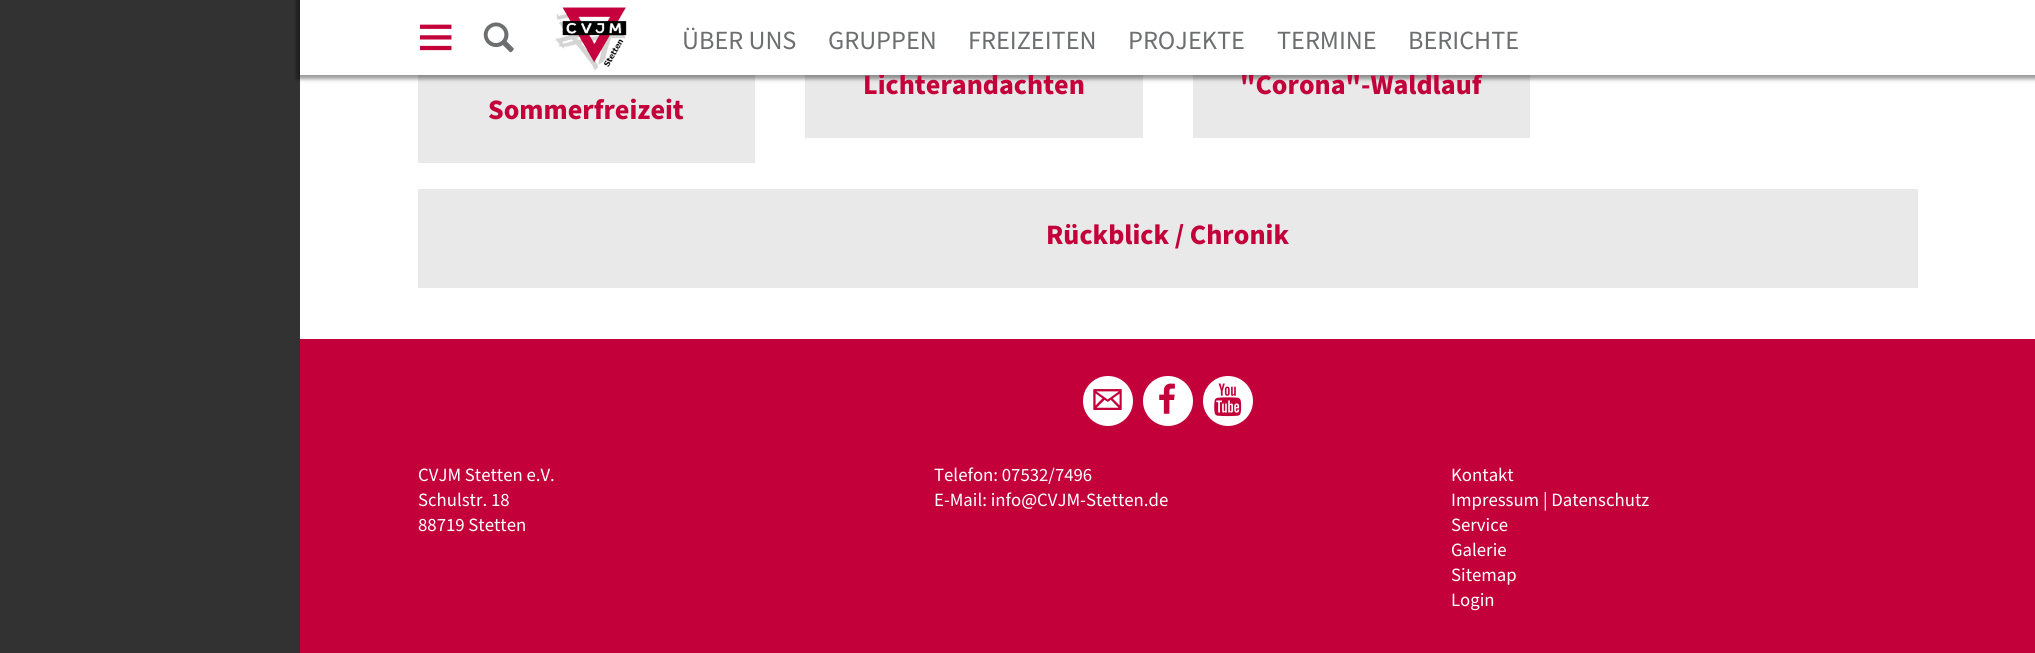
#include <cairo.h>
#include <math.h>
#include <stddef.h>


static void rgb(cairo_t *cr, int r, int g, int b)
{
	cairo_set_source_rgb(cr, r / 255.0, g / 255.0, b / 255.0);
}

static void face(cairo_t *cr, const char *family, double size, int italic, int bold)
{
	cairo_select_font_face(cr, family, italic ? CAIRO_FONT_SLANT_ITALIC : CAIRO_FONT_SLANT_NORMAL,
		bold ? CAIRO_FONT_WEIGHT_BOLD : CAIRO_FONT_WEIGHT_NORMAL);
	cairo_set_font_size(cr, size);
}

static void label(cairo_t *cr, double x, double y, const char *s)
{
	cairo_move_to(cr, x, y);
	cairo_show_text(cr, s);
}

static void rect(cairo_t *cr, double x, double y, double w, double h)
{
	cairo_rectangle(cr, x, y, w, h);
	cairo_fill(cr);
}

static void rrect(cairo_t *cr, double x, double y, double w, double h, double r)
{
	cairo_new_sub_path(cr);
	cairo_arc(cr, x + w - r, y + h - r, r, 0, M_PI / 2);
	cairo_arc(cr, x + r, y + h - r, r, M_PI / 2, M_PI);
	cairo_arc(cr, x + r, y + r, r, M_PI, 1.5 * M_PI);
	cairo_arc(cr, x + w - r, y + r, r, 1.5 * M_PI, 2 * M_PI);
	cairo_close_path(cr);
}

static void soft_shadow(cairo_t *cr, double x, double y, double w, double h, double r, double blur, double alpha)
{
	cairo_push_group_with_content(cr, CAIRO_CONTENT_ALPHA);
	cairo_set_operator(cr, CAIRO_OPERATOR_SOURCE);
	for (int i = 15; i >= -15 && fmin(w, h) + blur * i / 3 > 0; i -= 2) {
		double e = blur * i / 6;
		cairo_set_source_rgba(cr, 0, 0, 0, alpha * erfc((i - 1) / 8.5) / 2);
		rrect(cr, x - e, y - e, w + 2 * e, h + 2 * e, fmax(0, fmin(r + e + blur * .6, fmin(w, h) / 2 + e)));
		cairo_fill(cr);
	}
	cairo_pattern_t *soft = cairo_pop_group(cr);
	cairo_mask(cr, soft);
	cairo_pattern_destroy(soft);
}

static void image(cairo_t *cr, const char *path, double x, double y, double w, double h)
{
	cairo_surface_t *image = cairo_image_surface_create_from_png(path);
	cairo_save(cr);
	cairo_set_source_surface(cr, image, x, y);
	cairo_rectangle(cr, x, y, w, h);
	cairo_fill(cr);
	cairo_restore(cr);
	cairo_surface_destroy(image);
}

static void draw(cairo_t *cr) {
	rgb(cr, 50, 50, 50);
	cairo_paint(cr);
	rgb(cr, 195, 0, 57);
	rect(cr, 300, 339, 1735, 314);
	rgb(cr, 255, 255, 255);
	rect(cr, 300, 75, 1735, 264);
	rgb(cr, 233, 233, 234);
	rect(cr, 805, 75, 338, 63);
	rect(cr, 1193, 75, 337, 63);
	rect(cr, 418, 75, 337, 88);
	rgb(cr, 0, 0, 0);
	soft_shadow(cr, 296, -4, 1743, 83, 0, 2, 0.4);
	face(cr, "Source Sans Pro", 28.1, 0, 1);
	rgb(cr, 195, 0, 57);
	label(cr, 863, 94, "Lichterandachten");
	label(cr, 1240, 94, "\"Corona\"-Waldlauf");
	rgb(cr, 255, 255, 255);
	rect(cr, 300, 0, 1735, 75);
	image(cr, "image0.png", 419, 24, 33, 27);
	image(cr, "image1.png", 483, 22, 31, 31);
	image(cr, "image2.png", 555, 7, 72, 63);
	face(cr, "Source Sans Pro", 26.25, 0, 0);
	rgb(cr, 109, 110, 112);
	label(cr, 682, 49, "ÜBER UNS");
	label(cr, 828, 49, "GRUPPEN");
	label(cr, 968, 49, "FREIZEITEN");
	label(cr, 1128, 49, "PROJEKTE");
	label(cr, 1277, 49, "TERMINE");
	label(cr, 1408, 49, "BERICHTE");
	face(cr, "Source Sans Pro", 28.1, 0, 1);
	rgb(cr, 195, 0, 57);
	label(cr, 488, 119, "Sommerfreizeit");
	rgb(cr, 233, 233, 234);
	rect(cr, 418, 189, 1500, 99);
	rgb(cr, 195, 0, 57);
	label(cr, 1046, 244, "Rückblick / Chronik");
	rgb(cr, 255, 255, 255);
	cairo_new_path(cr);
	cairo_arc(cr, 1108, 401, 25, 0, 2 * M_PI);
	cairo_fill(cr);
	image(cr, "image3.png", 1093, 389, 29, 21);
	cairo_arc(cr, 1168, 401, 25, 0, 2 * M_PI);
	cairo_fill(cr);
	image(cr, "image4.png", 1159, 383, 16, 31);
	cairo_arc(cr, 1228, 401, 25, 0, 2 * M_PI);
	cairo_fill(cr);
	image(cr, "image5.png", 1214, 383, 28, 34);
	face(cr, "Source Sans Pro", 18.75, 0, 0);
	label(cr, 418, 481, "CVJM Stetten e.V.");
	label(cr, 418, 506, "Schulstr. 18");
	label(cr, 418, 531, "88719 Stetten");
	label(cr, 934, 481, "Telefon: 07532/7496");
	label(cr, 934, 506, "E-Mail: info@CVJM-Stetten.de");
	label(cr, 1451, 481, "Kontakt");
	label(cr, 1451, 506, "Impressum | Datenschutz");
	label(cr, 1451, 531, "Service");
	label(cr, 1451, 556, "Galerie");
	label(cr, 1451, 581, "Sitemap");
	label(cr, 1451, 606, "Login");
}

int main(void) {
	cairo_surface_t *surface = cairo_image_surface_create(CAIRO_FORMAT_RGB24, 2035, 653);
	cairo_t *cr = cairo_create(surface);
	cairo_font_options_t *options = cairo_font_options_create();
	cairo_font_options_set_hint_metrics(options, CAIRO_HINT_METRICS_OFF);
	cairo_font_options_set_hint_style(options, CAIRO_HINT_STYLE_NONE);
	cairo_set_font_options(cr, options);
	cairo_set_miter_limit(cr, 4);
	draw(cr);
	cairo_surface_write_to_png(surface, "render.png");
	cairo_font_options_destroy(options);
	cairo_destroy(cr);
	cairo_surface_destroy(surface);
	return 0;
}
